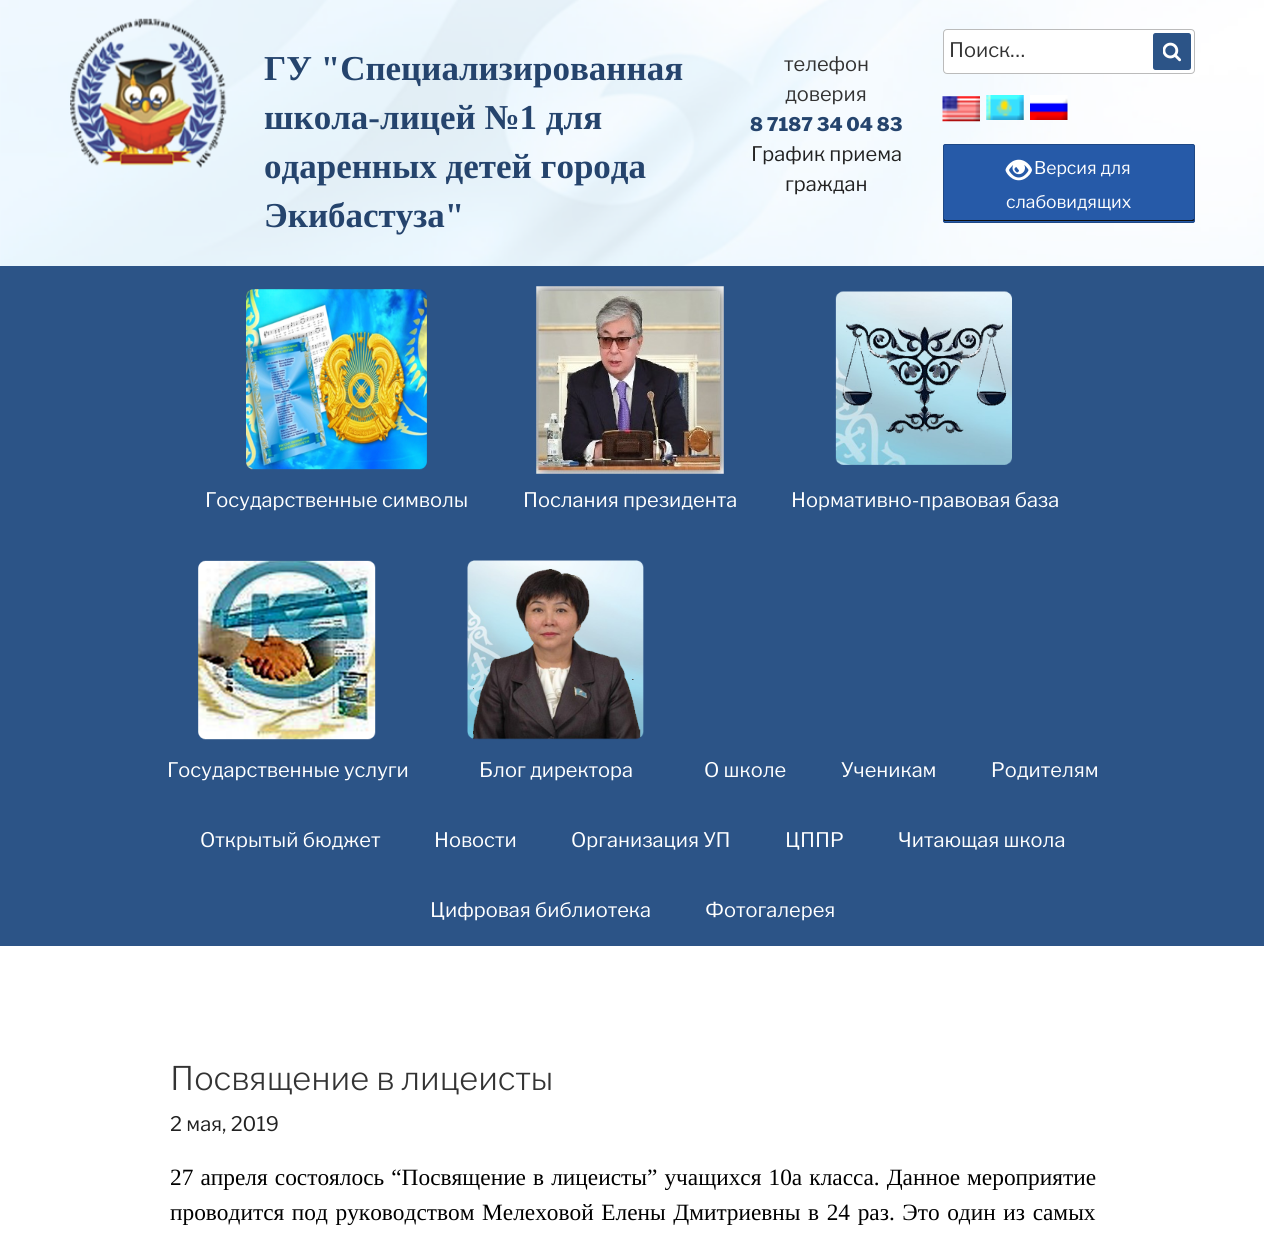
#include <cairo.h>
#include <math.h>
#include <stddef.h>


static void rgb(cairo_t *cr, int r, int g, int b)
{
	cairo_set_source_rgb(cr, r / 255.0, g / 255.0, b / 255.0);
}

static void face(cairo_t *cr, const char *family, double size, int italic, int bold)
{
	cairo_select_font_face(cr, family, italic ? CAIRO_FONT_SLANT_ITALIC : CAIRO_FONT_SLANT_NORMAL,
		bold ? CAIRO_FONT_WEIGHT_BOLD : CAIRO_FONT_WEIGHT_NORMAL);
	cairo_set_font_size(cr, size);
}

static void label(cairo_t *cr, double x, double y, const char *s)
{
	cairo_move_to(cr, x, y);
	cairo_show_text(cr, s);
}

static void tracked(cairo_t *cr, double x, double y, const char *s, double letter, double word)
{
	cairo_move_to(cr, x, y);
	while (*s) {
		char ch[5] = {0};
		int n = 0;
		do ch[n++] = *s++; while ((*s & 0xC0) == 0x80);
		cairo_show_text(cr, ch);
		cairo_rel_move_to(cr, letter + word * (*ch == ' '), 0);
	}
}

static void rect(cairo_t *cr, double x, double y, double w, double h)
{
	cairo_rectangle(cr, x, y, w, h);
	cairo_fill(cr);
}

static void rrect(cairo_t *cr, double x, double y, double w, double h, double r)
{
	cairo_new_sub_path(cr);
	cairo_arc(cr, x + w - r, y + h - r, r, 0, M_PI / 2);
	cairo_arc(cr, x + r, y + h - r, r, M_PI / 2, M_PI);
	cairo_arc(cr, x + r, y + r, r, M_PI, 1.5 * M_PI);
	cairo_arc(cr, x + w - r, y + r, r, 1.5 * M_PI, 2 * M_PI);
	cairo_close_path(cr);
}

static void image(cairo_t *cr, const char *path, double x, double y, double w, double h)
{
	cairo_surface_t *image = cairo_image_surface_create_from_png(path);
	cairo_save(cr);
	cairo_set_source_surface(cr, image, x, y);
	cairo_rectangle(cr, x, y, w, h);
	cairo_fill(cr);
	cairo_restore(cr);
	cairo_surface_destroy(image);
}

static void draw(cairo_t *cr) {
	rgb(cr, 255, 255, 255);
	cairo_paint(cr);
	image(cr, "image0.png", 0, 0, 1264, 266);
	image(cr, "image1.png", 70, 18, 157, 150);
	face(cr, "Liberation Serif", 35, 0, 1);
	rgb(cr, 37, 68, 109);
	label(cr, 264, 80, "ГУ \"Специализированная");
	label(cr, 264, 129, "школа-лицей №1 для");
	label(cr, 264, 178, "одаренных детей города");
	label(cr, 264, 227, "Экибастуза\"");
	face(cr, "Libre Franklin", 20, 0, 0);
	rgb(cr, 51, 51, 51);
	label(cr, 784, 71, "телефон");
	label(cr, 785, 101, "доверия");
	face(cr, "Libre Franklin ExtraBold", 18.75, 0, 0);
	rgb(cr, 37, 68, 109);
	label(cr, 750, 131, "8 7187 34 04 83");
	face(cr, "Libre Franklin", 20, 0, 0);
	rgb(cr, 34, 34, 34);
	label(cr, 751, 161, "График приема");
	label(cr, 785, 191, "граждан");
	rgb(cr, 255, 255, 255);
	rrect(cr, 943.5, 29.5, 251, 44, 3.5);
	cairo_fill_preserve(cr);
	rgb(cr, 187, 187, 187);
	cairo_set_line_width(cr, 1);
	cairo_stroke(cr);
	rgb(cr, 51, 51, 51);
	label(cr, 949, 57, "Поиск…");
	rgb(cr, 44, 84, 135);
	rrect(cr, 1153, 33, 38, 37, 2.5);
	cairo_fill(cr);
	image(cr, "image2.png", 1163, 42, 18, 20);
	image(cr, "image3.png", 942, 96, 38, 26);
	image(cr, "image4.png", 986, 95, 38, 25);
	image(cr, "image5.png", 1030, 95, 38, 25);
	rgb(cr, 38, 90, 168);
	rrect(cr, 943, 144, 252, 79, 2.5);
	cairo_fill(cr);
	rgb(cr, 15, 15, 15);
	cairo_new_path(cr);
	cairo_move_to(cr, 944, 219);
	cairo_line_to(cr, 944, 221);
	cairo_line_to(cr, 1193, 221);
	cairo_curve_to(cr, 1194, 221, 1194, 220, 1194, 219);
	cairo_line_to(cr, 1192, 220);
	cairo_line_to(cr, 945, 220);
	cairo_close_path(cr);
	cairo_fill(cr);
	rrect(cr, 943.5, 144.5, 251, 78, 2);
	rgb(cr, 30, 72, 134);
	cairo_stroke(cr);
	image(cr, "image6.png", 1005, 159, 27, 22);
	face(cr, "Libre Franklin", 17.5, 0, 0);
	rgb(cr, 255, 255, 255);
	label(cr, 1034, 174, "Версия для");
	label(cr, 1006, 208, "слабовидящих");
	rgb(cr, 44, 84, 135);
	rect(cr, 0, 266, 1264, 680);
	image(cr, "image7.png", 246, 289, 181, 181);
	face(cr, "Libre Franklin", 20, 0, 0);
	rgb(cr, 255, 255, 255);
	label(cr, 205, 507, "Государственные символы");
	image(cr, "image8.png", 536, 286, 188, 188);
	label(cr, 523, 507, "Послания президента");
	image(cr, "image9.png", 835, 291, 177, 174);
	label(cr, 791, 507, "Нормативно-правовая база");
	image(cr, "image10.png", 198, 560, 178, 180);
	label(cr, 167, 777, "Государственные услуги");
	image(cr, "image11.png", 467, 560, 177, 180);
	label(cr, 479, 777, "Блог директора");
	label(cr, 704, 777, "О школе");
	label(cr, 841, 777, "Ученикам");
	label(cr, 991, 777, "Родителям");
	label(cr, 200, 847, "Открытый бюджет");
	label(cr, 434, 847, "Новости");
	label(cr, 571, 847, "Организация УП");
	label(cr, 785, 847, "ЦППР");
	label(cr, 898, 847, "Читающая школа");
	label(cr, 430, 917, "Цифровая библиотека");
	label(cr, 705, 917, "Фотогалерея");
	face(cr, "Libre Franklin Light", 32.5, 0, 0);
	rgb(cr, 51, 51, 51);
	label(cr, 170, 1090, "Посвящение в лицеисты");
	face(cr, "Libre Franklin", 20, 0, 0);
	rgb(cr, 34, 34, 34);
	label(cr, 170, 1131, "2 мая, 2019");
	face(cr, "Liberation Serif", 23.35, 0, 0);
	rgb(cr, 0, 0, 0);
	tracked(cr, 170, 1185, "27 апреля состоялось “Посвящение в лицеисты” учащихся 10а класса. Данное мероприятие", 0, 1.25);
	tracked(cr, 170, 1220, "проводится под руководством Мелеховой Елены Дмитриевны в 24 раз. Это один из самых", 0, 1.75);
}

int main(void) {
	cairo_surface_t *surface = cairo_image_surface_create(CAIRO_FORMAT_RGB24, 1264, 1241);
	cairo_t *cr = cairo_create(surface);
	cairo_font_options_t *options = cairo_font_options_create();
	cairo_font_options_set_hint_metrics(options, CAIRO_HINT_METRICS_OFF);
	cairo_font_options_set_hint_style(options, CAIRO_HINT_STYLE_NONE);
	cairo_set_font_options(cr, options);
	cairo_set_miter_limit(cr, 4);
	draw(cr);
	cairo_surface_write_to_png(surface, "render.png");
	cairo_font_options_destroy(options);
	cairo_destroy(cr);
	cairo_surface_destroy(surface);
	return 0;
}
